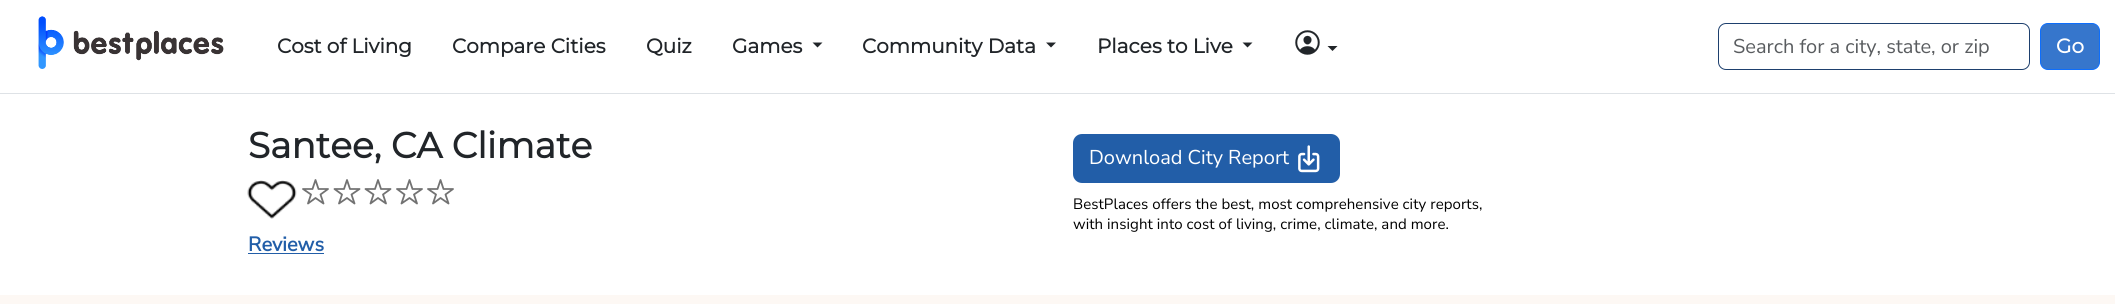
#include <cairo.h>
#include <math.h>
#include <stddef.h>


static void rgb(cairo_t *cr, int r, int g, int b)
{
	cairo_set_source_rgb(cr, r / 255.0, g / 255.0, b / 255.0);
}

static void face(cairo_t *cr, const char *family, double size, int italic, int bold)
{
	cairo_select_font_face(cr, family, italic ? CAIRO_FONT_SLANT_ITALIC : CAIRO_FONT_SLANT_NORMAL,
		bold ? CAIRO_FONT_WEIGHT_BOLD : CAIRO_FONT_WEIGHT_NORMAL);
	cairo_set_font_size(cr, size);
}

static void label(cairo_t *cr, double x, double y, const char *s)
{
	cairo_move_to(cr, x, y);
	cairo_show_text(cr, s);
}

static void tracked(cairo_t *cr, double x, double y, const char *s, double letter, double word)
{
	cairo_move_to(cr, x, y);
	while (*s) {
		char ch[5] = {0};
		int n = 0;
		do ch[n++] = *s++; while ((*s & 0xC0) == 0x80);
		cairo_show_text(cr, ch);
		cairo_rel_move_to(cr, letter + word * (*ch == ' '), 0);
	}
}

static void rect(cairo_t *cr, double x, double y, double w, double h)
{
	cairo_rectangle(cr, x, y, w, h);
	cairo_fill(cr);
}

static void rrect(cairo_t *cr, double x, double y, double w, double h, double r)
{
	cairo_new_sub_path(cr);
	cairo_arc(cr, x + w - r, y + h - r, r, 0, M_PI / 2);
	cairo_arc(cr, x + r, y + h - r, r, M_PI / 2, M_PI);
	cairo_arc(cr, x + r, y + r, r, M_PI, 1.5 * M_PI);
	cairo_arc(cr, x + w - r, y + r, r, 1.5 * M_PI, 2 * M_PI);
	cairo_close_path(cr);
}

static void image(cairo_t *cr, const char *path, double x, double y, double w, double h)
{
	cairo_surface_t *image = cairo_image_surface_create_from_png(path);
	cairo_save(cr);
	cairo_set_source_surface(cr, image, x, y);
	cairo_rectangle(cr, x, y, w, h);
	cairo_fill(cr);
	cairo_restore(cr);
	cairo_surface_destroy(image);
}

static void draw(cairo_t *cr) {
	rgb(cr, 255, 255, 255);
	cairo_paint(cr);
	rgb(cr, 222, 226, 230);
	rect(cr, 0, 93, 2115, 1);
	image(cr, "image0.png", 38, 16, 186, 53);
	face(cr, "Montserrat", 20, 0, 1);
	rgb(cr, 33, 37, 41);
	label(cr, 277, 53, "Cost of Living");
	label(cr, 452, 53, "Compare Cities");
	label(cr, 646, 53, "Quiz");
	label(cr, 732, 53, "Games");
	cairo_new_path(cr);
	cairo_move_to(cr, 812.5, 42.5);
	cairo_line_to(cr, 822.5, 42.5);
	cairo_line_to(cr, 817.5, 47.5);
	cairo_close_path(cr);
	cairo_fill(cr);
	label(cr, 862, 53, "Community Data");
	cairo_new_path(cr);
	cairo_move_to(cr, 1046, 42.5);
	cairo_line_to(cr, 1056, 42.5);
	cairo_line_to(cr, 1051, 47.5);
	cairo_close_path(cr);
	cairo_fill(cr);
	label(cr, 1097, 53, "Places to Live");
	cairo_new_path(cr);
	cairo_move_to(cr, 1242.5, 42.5);
	cairo_line_to(cr, 1252.5, 42.5);
	cairo_line_to(cr, 1247.5, 47.5);
	cairo_close_path(cr);
	cairo_fill(cr);
	image(cr, "image1.png", 1295, 30, 25, 25);
	cairo_new_path(cr);
	cairo_move_to(cr, 1327.5, 46);
	cairo_line_to(cr, 1337.5, 46);
	cairo_line_to(cr, 1332.5, 51);
	cairo_close_path(cr);
	cairo_fill(cr);
	rrect(cr, 1718.5, 23.5, 311, 46, 7.5);
	rgb(cr, 30, 64, 110);
	cairo_set_line_width(cr, 1);
	cairo_stroke(cr);
	face(cr, "Nunito Sans ExtraLight", 20, 0, 0);
	rgb(cr, 89, 92, 95);
	label(cr, 1733, 53, "Search for a city, state, or zip");
	rgb(cr, 54, 118, 204);
	rrect(cr, 2040.5, 23.5, 59, 46, 7.5);
	cairo_fill_preserve(cr);
	rgb(cr, 13, 110, 253);
	cairo_stroke(cr);
	face(cr, "Montserrat", 20, 0, 1);
	rgb(cr, 255, 255, 255);
	label(cr, 2056, 53, "Go");
	face(cr, "Montserrat", 36, 0, 1);
	rgb(cr, 33, 37, 41);
	label(cr, 248, 158, "Santee, CA Climate");
	image(cr, "image2.png", 247, 180, 50, 39);
	cairo_new_path(cr);
	cairo_move_to(cr, 328, 189);
	cairo_line_to(cr, 318.5, 189);
	cairo_line_to(cr, 315.5, 180);
	cairo_line_to(cr, 312.5, 189);
	cairo_line_to(cr, 303, 189);
	cairo_line_to(cr, 311, 194.5);
	cairo_line_to(cr, 308, 203.5);
	cairo_line_to(cr, 315.5, 198);
	cairo_line_to(cr, 323.5, 203.5);
	cairo_line_to(cr, 320.5, 194.5);
	cairo_close_path(cr);
	cairo_move_to(cr, 359.5, 189);
	cairo_line_to(cr, 350, 189);
	cairo_line_to(cr, 347, 180);
	cairo_line_to(cr, 344, 189);
	cairo_line_to(cr, 334.5, 189);
	cairo_line_to(cr, 342, 194.5);
	cairo_line_to(cr, 339, 203.5);
	cairo_line_to(cr, 347, 198);
	cairo_line_to(cr, 354.5, 203.5);
	cairo_line_to(cr, 351.5, 194.5);
	cairo_close_path(cr);
	rgb(cr, 114, 114, 114);
	cairo_set_line_width(cr, 1.8);
	cairo_set_line_join(cr, CAIRO_LINE_JOIN_ROUND);
	cairo_stroke(cr);
	cairo_new_path(cr);
	cairo_move_to(cr, 390.5, 189);
	cairo_line_to(cr, 381, 189);
	cairo_line_to(cr, 378, 180);
	cairo_line_to(cr, 375, 189);
	cairo_line_to(cr, 365.5, 189);
	cairo_line_to(cr, 373.5, 194.5);
	cairo_line_to(cr, 370.5, 203.5);
	cairo_line_to(cr, 378, 198);
	cairo_line_to(cr, 386, 203.5);
	cairo_line_to(cr, 383, 194.5);
	cairo_close_path(cr);
	cairo_move_to(cr, 422, 189);
	cairo_line_to(cr, 412.5, 189);
	cairo_line_to(cr, 409.5, 180);
	cairo_line_to(cr, 406.5, 189);
	cairo_line_to(cr, 397, 189);
	cairo_line_to(cr, 404.5, 194.5);
	cairo_line_to(cr, 401.5, 203.5);
	cairo_line_to(cr, 409.5, 198);
	cairo_line_to(cr, 417, 203.5);
	cairo_line_to(cr, 414, 194.5);
	cairo_close_path(cr);
	cairo_stroke(cr);
	cairo_new_path(cr);
	cairo_move_to(cr, 453, 189);
	cairo_line_to(cr, 443.5, 189);
	cairo_line_to(cr, 440.5, 180);
	cairo_line_to(cr, 437.5, 189);
	cairo_line_to(cr, 428, 189);
	cairo_line_to(cr, 436, 194.5);
	cairo_line_to(cr, 433, 203.5);
	cairo_line_to(cr, 440.5, 198);
	cairo_line_to(cr, 448.5, 203.5);
	cairo_line_to(cr, 445.5, 194.5);
	cairo_close_path(cr);
	cairo_stroke(cr);
	face(cr, "Nunito Sans", 20, 0, 1);
	rgb(cr, 34, 94, 168);
	label(cr, 248, 251, "Reviews");
	rect(cr, 248, 253, 76, 1);
	rrect(cr, 1073, 134, 267, 49, 9);
	cairo_fill(cr);
	face(cr, "Nunito Sans ExtraLight", 20, 0, 0);
	rgb(cr, 255, 255, 255);
	label(cr, 1089, 164, "Download City Report");
	image(cr, "image3.png", 1298, 145, 22, 28);
	face(cr, "Nunito Sans ExtraLight", 15, 0, 0);
	rgb(cr, 0, 0, 0);
	tracked(cr, 1073, 209, "BestPlaces offers the best, most comprehensive city reports,", 0.07, 0);
	tracked(cr, 1073, 229, "with insight into cost of living, crime, climate, and more.", 0.07, 0);
	rgb(cr, 253, 248, 244);
	rect(cr, 0, 295, 2115, 9);
}

int main(void) {
	cairo_surface_t *surface = cairo_image_surface_create(CAIRO_FORMAT_RGB24, 2115, 304);
	cairo_t *cr = cairo_create(surface);
	cairo_font_options_t *options = cairo_font_options_create();
	cairo_font_options_set_hint_metrics(options, CAIRO_HINT_METRICS_OFF);
	cairo_font_options_set_hint_style(options, CAIRO_HINT_STYLE_NONE);
	cairo_set_font_options(cr, options);
	cairo_set_miter_limit(cr, 4);
	draw(cr);
	cairo_surface_write_to_png(surface, "render.png");
	cairo_font_options_destroy(options);
	cairo_destroy(cr);
	cairo_surface_destroy(surface);
	return 0;
}
